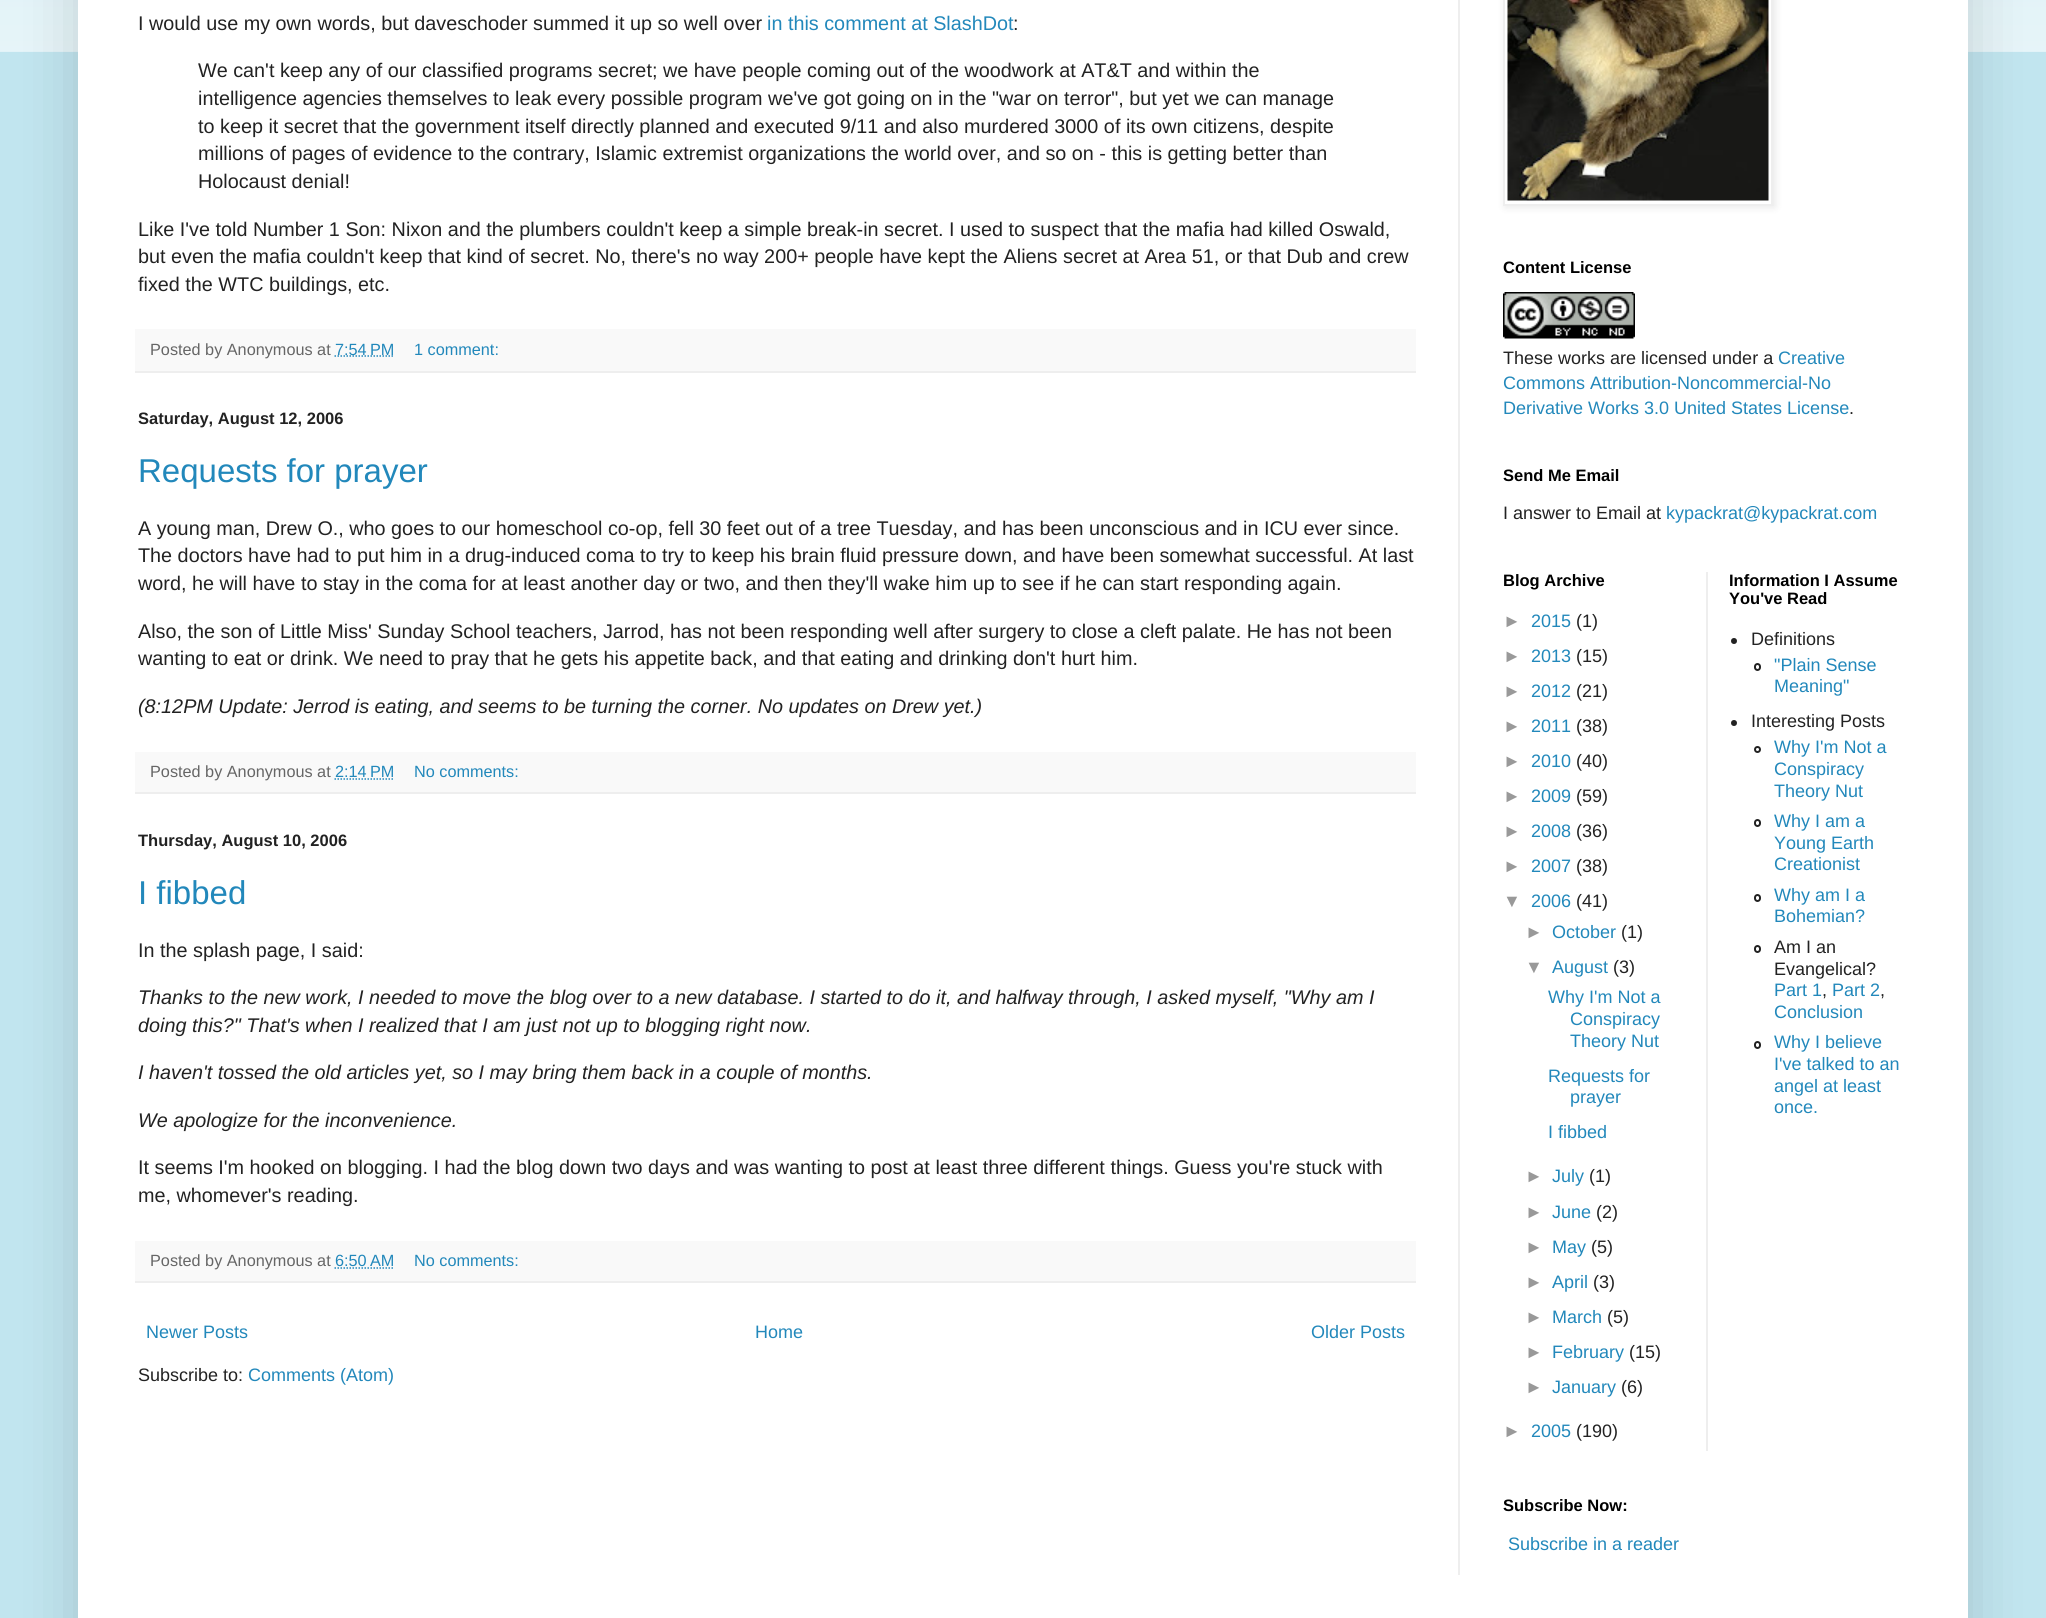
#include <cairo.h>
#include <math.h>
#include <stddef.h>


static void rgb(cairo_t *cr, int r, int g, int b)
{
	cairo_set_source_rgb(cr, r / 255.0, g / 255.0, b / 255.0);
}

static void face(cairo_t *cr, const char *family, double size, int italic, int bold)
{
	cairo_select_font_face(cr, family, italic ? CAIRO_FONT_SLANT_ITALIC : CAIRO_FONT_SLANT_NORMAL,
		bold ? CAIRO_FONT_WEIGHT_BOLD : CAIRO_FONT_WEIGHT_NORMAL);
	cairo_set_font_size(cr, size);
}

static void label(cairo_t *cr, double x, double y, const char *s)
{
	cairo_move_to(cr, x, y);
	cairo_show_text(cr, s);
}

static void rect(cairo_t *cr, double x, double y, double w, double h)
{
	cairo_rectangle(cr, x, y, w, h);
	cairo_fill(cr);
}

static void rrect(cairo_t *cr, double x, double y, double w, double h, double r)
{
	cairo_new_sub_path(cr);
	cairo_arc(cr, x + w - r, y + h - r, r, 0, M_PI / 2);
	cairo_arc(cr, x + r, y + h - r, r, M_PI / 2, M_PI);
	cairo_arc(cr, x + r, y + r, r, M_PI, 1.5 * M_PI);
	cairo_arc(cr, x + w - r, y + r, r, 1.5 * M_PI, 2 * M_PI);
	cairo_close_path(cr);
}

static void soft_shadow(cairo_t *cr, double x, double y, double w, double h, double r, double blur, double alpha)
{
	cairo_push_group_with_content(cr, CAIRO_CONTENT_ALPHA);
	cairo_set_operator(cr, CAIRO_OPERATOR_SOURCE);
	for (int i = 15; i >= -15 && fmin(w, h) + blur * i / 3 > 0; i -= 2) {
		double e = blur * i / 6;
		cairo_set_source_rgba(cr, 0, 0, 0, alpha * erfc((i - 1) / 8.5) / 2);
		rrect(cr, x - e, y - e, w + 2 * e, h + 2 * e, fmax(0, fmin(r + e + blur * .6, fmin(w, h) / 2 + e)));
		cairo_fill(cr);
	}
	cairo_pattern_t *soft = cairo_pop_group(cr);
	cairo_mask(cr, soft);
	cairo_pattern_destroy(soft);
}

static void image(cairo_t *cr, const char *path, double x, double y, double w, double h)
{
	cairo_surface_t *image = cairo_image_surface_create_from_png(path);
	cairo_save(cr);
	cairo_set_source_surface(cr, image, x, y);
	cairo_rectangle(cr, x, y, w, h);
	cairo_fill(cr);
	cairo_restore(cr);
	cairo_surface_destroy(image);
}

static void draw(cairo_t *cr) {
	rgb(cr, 193, 229, 239);
	cairo_paint(cr);
	image(cr, "image0.png", 0, 0, 2046, 52);
	rgb(cr, 0, 0, 0);
	soft_shadow(cr, 78, -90, 1890, 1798, 0, 30, 0.15);
	rgb(cr, 255, 255, 255);
	rect(cr, 78, 0, 1890, 1618);
	rgb(cr, 238, 238, 238);
	rect(cr, 1458, 0, 2, 1575);
	face(cr, "Liberation Sans", 19.8, 0, 0);
	rgb(cr, 34, 34, 34);
	label(cr, 138, 30, "I would use my own words, but daveschoder summed it up so well over");
	rgb(cr, 34, 136, 187);
	label(cr, 767, 30, "in this comment at SlashDot");
	rgb(cr, 34, 34, 34);
	label(cr, 1013, 30, ":");
	label(cr, 198, 77, "We can't keep any of our classified programs secret; we have people coming out of the woodwork at AT&T and within the");
	label(cr, 198, 105, "intelligence agencies themselves to leak every possible program we've got going on in the \"war on terror\", but yet we can manage");
	label(cr, 198, 133, "to keep it secret that the government itself directly planned and executed 9/11 and also murdered 3000 of its own citizens, despite");
	label(cr, 198, 160, "millions of pages of evidence to the contrary, Islamic extremist organizations the world over, and so on - this is getting better than");
	label(cr, 198, 188, "Holocaust denial!");
	label(cr, 138, 236, "Like I've told Number 1 Son: Nixon and the plumbers couldn't keep a simple break-in secret. I used to suspect that the mafia had killed Oswald,");
	label(cr, 138, 263, "but even the mafia couldn't keep that kind of secret. No, there's no way 200+ people have kept the Aliens secret at Area 51, or that Dub and crew");
	label(cr, 138, 291, "fixed the WTC buildings, etc.");
	rgb(cr, 249, 249, 249);
	rect(cr, 135, 329, 1281, 42);
	rgb(cr, 238, 238, 238);
	rect(cr, 135, 371, 1281, 2);
	face(cr, "Liberation Sans", 16.25, 0, 0);
	rgb(cr, 102, 102, 102);
	label(cr, 150, 355, "Posted by Anonymous at");
	cairo_new_path(cr);
	cairo_move_to(cr, 334.5, 356);
	cairo_line_to(cr, 393.5, 356);
	rgb(cr, 34, 136, 187);
	cairo_set_line_width(cr, 1.5);
	cairo_set_dash(cr, (double[]){1.5, 1.5}, 2, 0);
	cairo_stroke(cr);
	label(cr, 335, 355, "7:54 PM");
	label(cr, 414, 355, "1 comment:");
	face(cr, "Liberation Sans", 16.5, 0, 1);
	rgb(cr, 34, 34, 34);
	label(cr, 138, 424, "Saturday, August 12, 2006");
	face(cr, "Liberation Sans", 33, 0, 0);
	rgb(cr, 34, 136, 187);
	label(cr, 138, 482, "Requests for prayer");
	face(cr, "Liberation Sans", 19.8, 0, 0);
	rgb(cr, 34, 34, 34);
	label(cr, 138, 535, "A young man, Drew O., who goes to our homeschool co-op, fell 30 feet out of a tree Tuesday, and has been unconscious and in ICU ever since.");
	label(cr, 138, 562, "The doctors have had to put him in a drug-induced coma to try to keep his brain fluid pressure down, and have been somewhat successful. At last");
	label(cr, 138, 590, "word, he will have to stay in the coma for at least another day or two, and then they'll wake him up to see if he can start responding again.");
	label(cr, 138, 638, "Also, the son of Little Miss' Sunday School teachers, Jarrod, has not been responding well after surgery to close a cleft palate. He has not been");
	label(cr, 138, 665, "wanting to eat or drink. We need to pray that he gets his appetite back, and that eating and drinking don't hurt him.");
	face(cr, "Liberation Sans", 19.8, 1, 0);
	label(cr, 138, 713, "(8:12PM Update: Jerrod is eating, and seems to be turning the corner. No updates on Drew yet.)");
	rgb(cr, 249, 249, 249);
	rect(cr, 135, 752, 1281, 40);
	rgb(cr, 238, 238, 238);
	rect(cr, 135, 792, 1281, 2);
	face(cr, "Liberation Sans", 16.25, 0, 0);
	rgb(cr, 102, 102, 102);
	label(cr, 150, 777, "Posted by Anonymous at");
	rgb(cr, 34, 136, 187);
	label(cr, 335, 777, "2:14 PM");
	cairo_new_path(cr);
	cairo_move_to(cr, 334.5, 779);
	cairo_line_to(cr, 393.5, 779);
	cairo_stroke(cr);
	label(cr, 414, 777, "No comments:");
	face(cr, "Liberation Sans", 16.5, 0, 1);
	rgb(cr, 34, 34, 34);
	label(cr, 138, 846, "Thursday, August 10, 2006");
	face(cr, "Liberation Sans", 33, 0, 0);
	rgb(cr, 34, 136, 187);
	label(cr, 138, 904, "I fibbed");
	face(cr, "Liberation Sans", 19.8, 0, 0);
	rgb(cr, 34, 34, 34);
	label(cr, 138, 957, "In the splash page, I said:");
	face(cr, "Liberation Sans", 19.8, 1, 0);
	label(cr, 138, 1004, "Thanks to the new work, I needed to move the blog over to a new database. I started to do it, and halfway through, I asked myself, \"Why am I");
	label(cr, 138, 1032, "doing this?\" That's when I realized that I am just not up to blogging right now.");
	label(cr, 138, 1079, "I haven't tossed the old articles yet, so I may bring them back in a couple of months.");
	label(cr, 138, 1127, "We apologize for the inconvenience.");
	face(cr, "Liberation Sans", 19.8, 0, 0);
	label(cr, 138, 1174, "It seems I'm hooked on blogging. I had the blog down two days and was wanting to post at least three different things. Guess you're stuck with");
	label(cr, 138, 1202, "me, whomever's reading.");
	rgb(cr, 249, 249, 249);
	rect(cr, 135, 1241, 1281, 40);
	rgb(cr, 238, 238, 238);
	rect(cr, 135, 1281, 1281, 2);
	face(cr, "Liberation Sans", 16.25, 0, 0);
	rgb(cr, 102, 102, 102);
	label(cr, 150, 1266, "Posted by Anonymous at");
	rgb(cr, 34, 136, 187);
	label(cr, 335, 1266, "6:50 AM");
	cairo_new_path(cr);
	cairo_move_to(cr, 334.5, 1268);
	cairo_line_to(cr, 393.5, 1268);
	cairo_stroke(cr);
	label(cr, 414, 1266, "No comments:");
	face(cr, "Liberation Sans", 18, 0, 0);
	label(cr, 146, 1338, "Newer Posts");
	label(cr, 755, 1338, "Home");
	label(cr, 1311, 1338, "Older Posts");
	rgb(cr, 34, 34, 34);
	label(cr, 138, 1381, "Subscribe to:");
	rgb(cr, 34, 136, 187);
	label(cr, 248, 1381, "Comments (Atom)");
	rgb(cr, 0, 0, 0);
	soft_shadow(cr, 1505, -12, 270, 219, 0, 4, 0.1);
	rgb(cr, 255, 255, 255);
	cairo_rectangle(cr, 1504, -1, 268, 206);
	cairo_fill_preserve(cr);
	rgb(cr, 238, 238, 238);
	cairo_set_line_width(cr, 2);
	cairo_set_dash(cr, NULL, 0, 0);
	cairo_stroke(cr);
	image(cr, "image1.png", 1507, 0, 262, 201);
	face(cr, "Liberation Sans", 16.5, 0, 1);
	rgb(cr, 0, 0, 0);
	label(cr, 1503, 273, "Content License");
	image(cr, "image2.png", 1503, 292, 132, 47);
	face(cr, "Liberation Sans", 18, 0, 0);
	rgb(cr, 34, 34, 34);
	label(cr, 1503, 364, "These works are licensed under a");
	rgb(cr, 34, 136, 187);
	label(cr, 1778, 364, "Creative");
	label(cr, 1503, 389, "Commons Attribution-Noncommercial-No");
	label(cr, 1503, 414, "Derivative Works 3.0 United States License");
	rgb(cr, 34, 34, 34);
	label(cr, 1849, 414, ".");
	face(cr, "Liberation Sans", 16.5, 0, 1);
	rgb(cr, 0, 0, 0);
	label(cr, 1503, 481, "Send Me Email");
	face(cr, "Liberation Sans", 18, 0, 0);
	rgb(cr, 34, 34, 34);
	label(cr, 1503, 519, "I answer to Email at");
	rgb(cr, 34, 136, 187);
	label(cr, 1666, 519, "kypackrat@kypackrat.com");
	face(cr, "Liberation Sans", 16.5, 0, 1);
	rgb(cr, 0, 0, 0);
	label(cr, 1503, 586, "Blog Archive");
	face(cr, "Liberation Sans", 18, 0, 0);
	rgb(cr, 153, 153, 153);
	label(cr, 1503, 627, "►");
	rgb(cr, 34, 136, 187);
	label(cr, 1531, 627, "2015");
	rgb(cr, 34, 34, 34);
	label(cr, 1576, 627, "(1)");
	rgb(cr, 153, 153, 153);
	label(cr, 1503, 662, "►");
	rgb(cr, 34, 136, 187);
	label(cr, 1531, 662, "2013");
	rgb(cr, 34, 34, 34);
	label(cr, 1576, 662, "(15)");
	rgb(cr, 153, 153, 153);
	label(cr, 1503, 697, "►");
	rgb(cr, 34, 136, 187);
	label(cr, 1531, 697, "2012");
	rgb(cr, 34, 34, 34);
	label(cr, 1576, 697, "(21)");
	rgb(cr, 153, 153, 153);
	label(cr, 1503, 732, "►");
	rgb(cr, 34, 136, 187);
	label(cr, 1531, 732, "2011");
	rgb(cr, 34, 34, 34);
	label(cr, 1576, 732, "(38)");
	rgb(cr, 153, 153, 153);
	label(cr, 1503, 767, "►");
	rgb(cr, 34, 136, 187);
	label(cr, 1531, 767, "2010");
	rgb(cr, 34, 34, 34);
	label(cr, 1576, 767, "(40)");
	rgb(cr, 153, 153, 153);
	label(cr, 1503, 802, "►");
	rgb(cr, 34, 136, 187);
	label(cr, 1531, 802, "2009");
	rgb(cr, 34, 34, 34);
	label(cr, 1576, 802, "(59)");
	rgb(cr, 153, 153, 153);
	label(cr, 1503, 837, "►");
	rgb(cr, 34, 136, 187);
	label(cr, 1531, 837, "2008");
	rgb(cr, 34, 34, 34);
	label(cr, 1576, 837, "(36)");
	rgb(cr, 153, 153, 153);
	label(cr, 1503, 872, "►");
	rgb(cr, 34, 136, 187);
	label(cr, 1531, 872, "2007");
	rgb(cr, 34, 34, 34);
	label(cr, 1576, 872, "(38)");
	rgb(cr, 153, 153, 153);
	label(cr, 1503, 907, "▼");
	rgb(cr, 34, 136, 187);
	label(cr, 1531, 907, "2006");
	rgb(cr, 34, 34, 34);
	label(cr, 1576, 907, "(41)");
	rgb(cr, 153, 153, 153);
	label(cr, 1525, 938, "►");
	rgb(cr, 34, 136, 187);
	label(cr, 1552, 938, "October");
	rgb(cr, 34, 34, 34);
	label(cr, 1621, 938, "(1)");
	rgb(cr, 153, 153, 153);
	label(cr, 1525, 973, "▼");
	rgb(cr, 34, 136, 187);
	label(cr, 1552, 973, "August");
	rgb(cr, 34, 34, 34);
	label(cr, 1613, 973, "(3)");
	rgb(cr, 34, 136, 187);
	label(cr, 1548, 1003, "Why I'm Not a");
	label(cr, 1570, 1025, "Conspiracy");
	label(cr, 1570, 1047, "Theory Nut");
	label(cr, 1548, 1082, "Requests for");
	label(cr, 1570, 1103, "prayer");
	label(cr, 1548, 1138, "I fibbed");
	rgb(cr, 153, 153, 153);
	label(cr, 1525, 1182, "►");
	rgb(cr, 34, 136, 187);
	label(cr, 1552, 1182, "July");
	rgb(cr, 34, 34, 34);
	label(cr, 1589, 1182, "(1)");
	rgb(cr, 153, 153, 153);
	label(cr, 1525, 1218, "►");
	rgb(cr, 34, 136, 187);
	label(cr, 1552, 1218, "June");
	rgb(cr, 34, 34, 34);
	label(cr, 1596, 1218, "(2)");
	rgb(cr, 153, 153, 153);
	label(cr, 1525, 1253, "►");
	rgb(cr, 34, 136, 187);
	label(cr, 1552, 1253, "May");
	rgb(cr, 34, 34, 34);
	label(cr, 1591, 1253, "(5)");
	rgb(cr, 153, 153, 153);
	label(cr, 1525, 1288, "►");
	rgb(cr, 34, 136, 187);
	label(cr, 1552, 1288, "April");
	rgb(cr, 34, 34, 34);
	label(cr, 1593, 1288, "(3)");
	rgb(cr, 153, 153, 153);
	label(cr, 1525, 1323, "►");
	rgb(cr, 34, 136, 187);
	label(cr, 1552, 1323, "March");
	rgb(cr, 34, 34, 34);
	label(cr, 1607, 1323, "(5)");
	rgb(cr, 153, 153, 153);
	label(cr, 1525, 1358, "►");
	rgb(cr, 34, 136, 187);
	label(cr, 1552, 1358, "February");
	rgb(cr, 34, 34, 34);
	label(cr, 1629, 1358, "(15)");
	rgb(cr, 153, 153, 153);
	label(cr, 1525, 1393, "►");
	rgb(cr, 34, 136, 187);
	label(cr, 1552, 1393, "January");
	rgb(cr, 34, 34, 34);
	label(cr, 1621, 1393, "(6)");
	rgb(cr, 153, 153, 153);
	label(cr, 1503, 1437, "►");
	rgb(cr, 34, 136, 187);
	label(cr, 1531, 1437, "2005");
	rgb(cr, 34, 34, 34);
	label(cr, 1576, 1437, "(190)");
	rgb(cr, 238, 238, 238);
	rect(cr, 1706, 572, 2, 879);
	face(cr, "Liberation Sans", 16.5, 0, 1);
	rgb(cr, 0, 0, 0);
	label(cr, 1729, 586, "Information I Assume");
	label(cr, 1729, 604, "You've Read");
	rgb(cr, 34, 34, 34);
	cairo_new_path(cr);
	cairo_arc(cr, 1734, 641, 3, 0, 2 * M_PI);
	cairo_fill(cr);
	face(cr, "Liberation Sans", 18, 0, 0);
	label(cr, 1751, 645, "Definitions");
	rrect(cr, 1755, 664, 5, 6, 2.5);
	cairo_stroke(cr);
	rgb(cr, 34, 136, 187);
	label(cr, 1774, 671, "\"Plain Sense");
	label(cr, 1774, 692, "Meaning\"");
	rgb(cr, 34, 34, 34);
	cairo_new_path(cr);
	cairo_arc(cr, 1734, 723, 3, 0, 2 * M_PI);
	cairo_fill(cr);
	label(cr, 1751, 727, "Interesting Posts");
	cairo_new_path(cr);
	cairo_arc(cr, 1757.5, 749.5, 2.5, 0, 2 * M_PI);
	cairo_stroke(cr);
	rgb(cr, 34, 136, 187);
	label(cr, 1774, 753, "Why I'm Not a");
	label(cr, 1774, 775, "Conspiracy");
	label(cr, 1774, 797, "Theory Nut");
	rrect(cr, 1755, 820, 5, 6, 2.5);
	rgb(cr, 34, 34, 34);
	cairo_stroke(cr);
	rgb(cr, 34, 136, 187);
	label(cr, 1774, 827, "Why I am a");
	label(cr, 1774, 849, "Young Earth");
	label(cr, 1774, 870, "Creationist");
	rrect(cr, 1755, 895, 5, 6, 2.5);
	rgb(cr, 34, 34, 34);
	cairo_stroke(cr);
	rgb(cr, 34, 136, 187);
	label(cr, 1774, 901, "Why am I a");
	label(cr, 1774, 922, "Bohemian?");
	rrect(cr, 1755, 946, 5, 6, 2.5);
	rgb(cr, 34, 34, 34);
	cairo_stroke(cr);
	label(cr, 1774, 953, "Am I an");
	label(cr, 1774, 975, "Evangelical?");
	rgb(cr, 34, 136, 187);
	label(cr, 1774, 996, "Part 1");
	rgb(cr, 34, 34, 34);
	label(cr, 1822, 996, ",");
	rgb(cr, 34, 136, 187);
	label(cr, 1832, 996, "Part 2");
	rgb(cr, 34, 34, 34);
	label(cr, 1880, 996, ",");
	rgb(cr, 34, 136, 187);
	label(cr, 1774, 1018, "Conclusion");
	rrect(cr, 1755, 1042, 5, 6, 2.5);
	rgb(cr, 34, 34, 34);
	cairo_stroke(cr);
	rgb(cr, 34, 136, 187);
	label(cr, 1774, 1048, "Why I believe");
	label(cr, 1774, 1070, "I've talked to an");
	label(cr, 1774, 1092, "angel at least");
	label(cr, 1774, 1113, "once.");
	face(cr, "Liberation Sans", 16.5, 0, 1);
	rgb(cr, 0, 0, 0);
	label(cr, 1503, 1511, "Subscribe Now:");
	face(cr, "Liberation Sans", 18, 0, 0);
	rgb(cr, 34, 136, 187);
	label(cr, 1508, 1550, "Subscribe in a reader");
}

int main(void) {
	cairo_surface_t *surface = cairo_image_surface_create(CAIRO_FORMAT_RGB24, 2046, 1618);
	cairo_t *cr = cairo_create(surface);
	cairo_font_options_t *options = cairo_font_options_create();
	cairo_font_options_set_hint_metrics(options, CAIRO_HINT_METRICS_OFF);
	cairo_font_options_set_hint_style(options, CAIRO_HINT_STYLE_NONE);
	cairo_set_font_options(cr, options);
	cairo_set_miter_limit(cr, 4);
	draw(cr);
	cairo_surface_write_to_png(surface, "render.png");
	cairo_font_options_destroy(options);
	cairo_destroy(cr);
	cairo_surface_destroy(surface);
	return 0;
}
